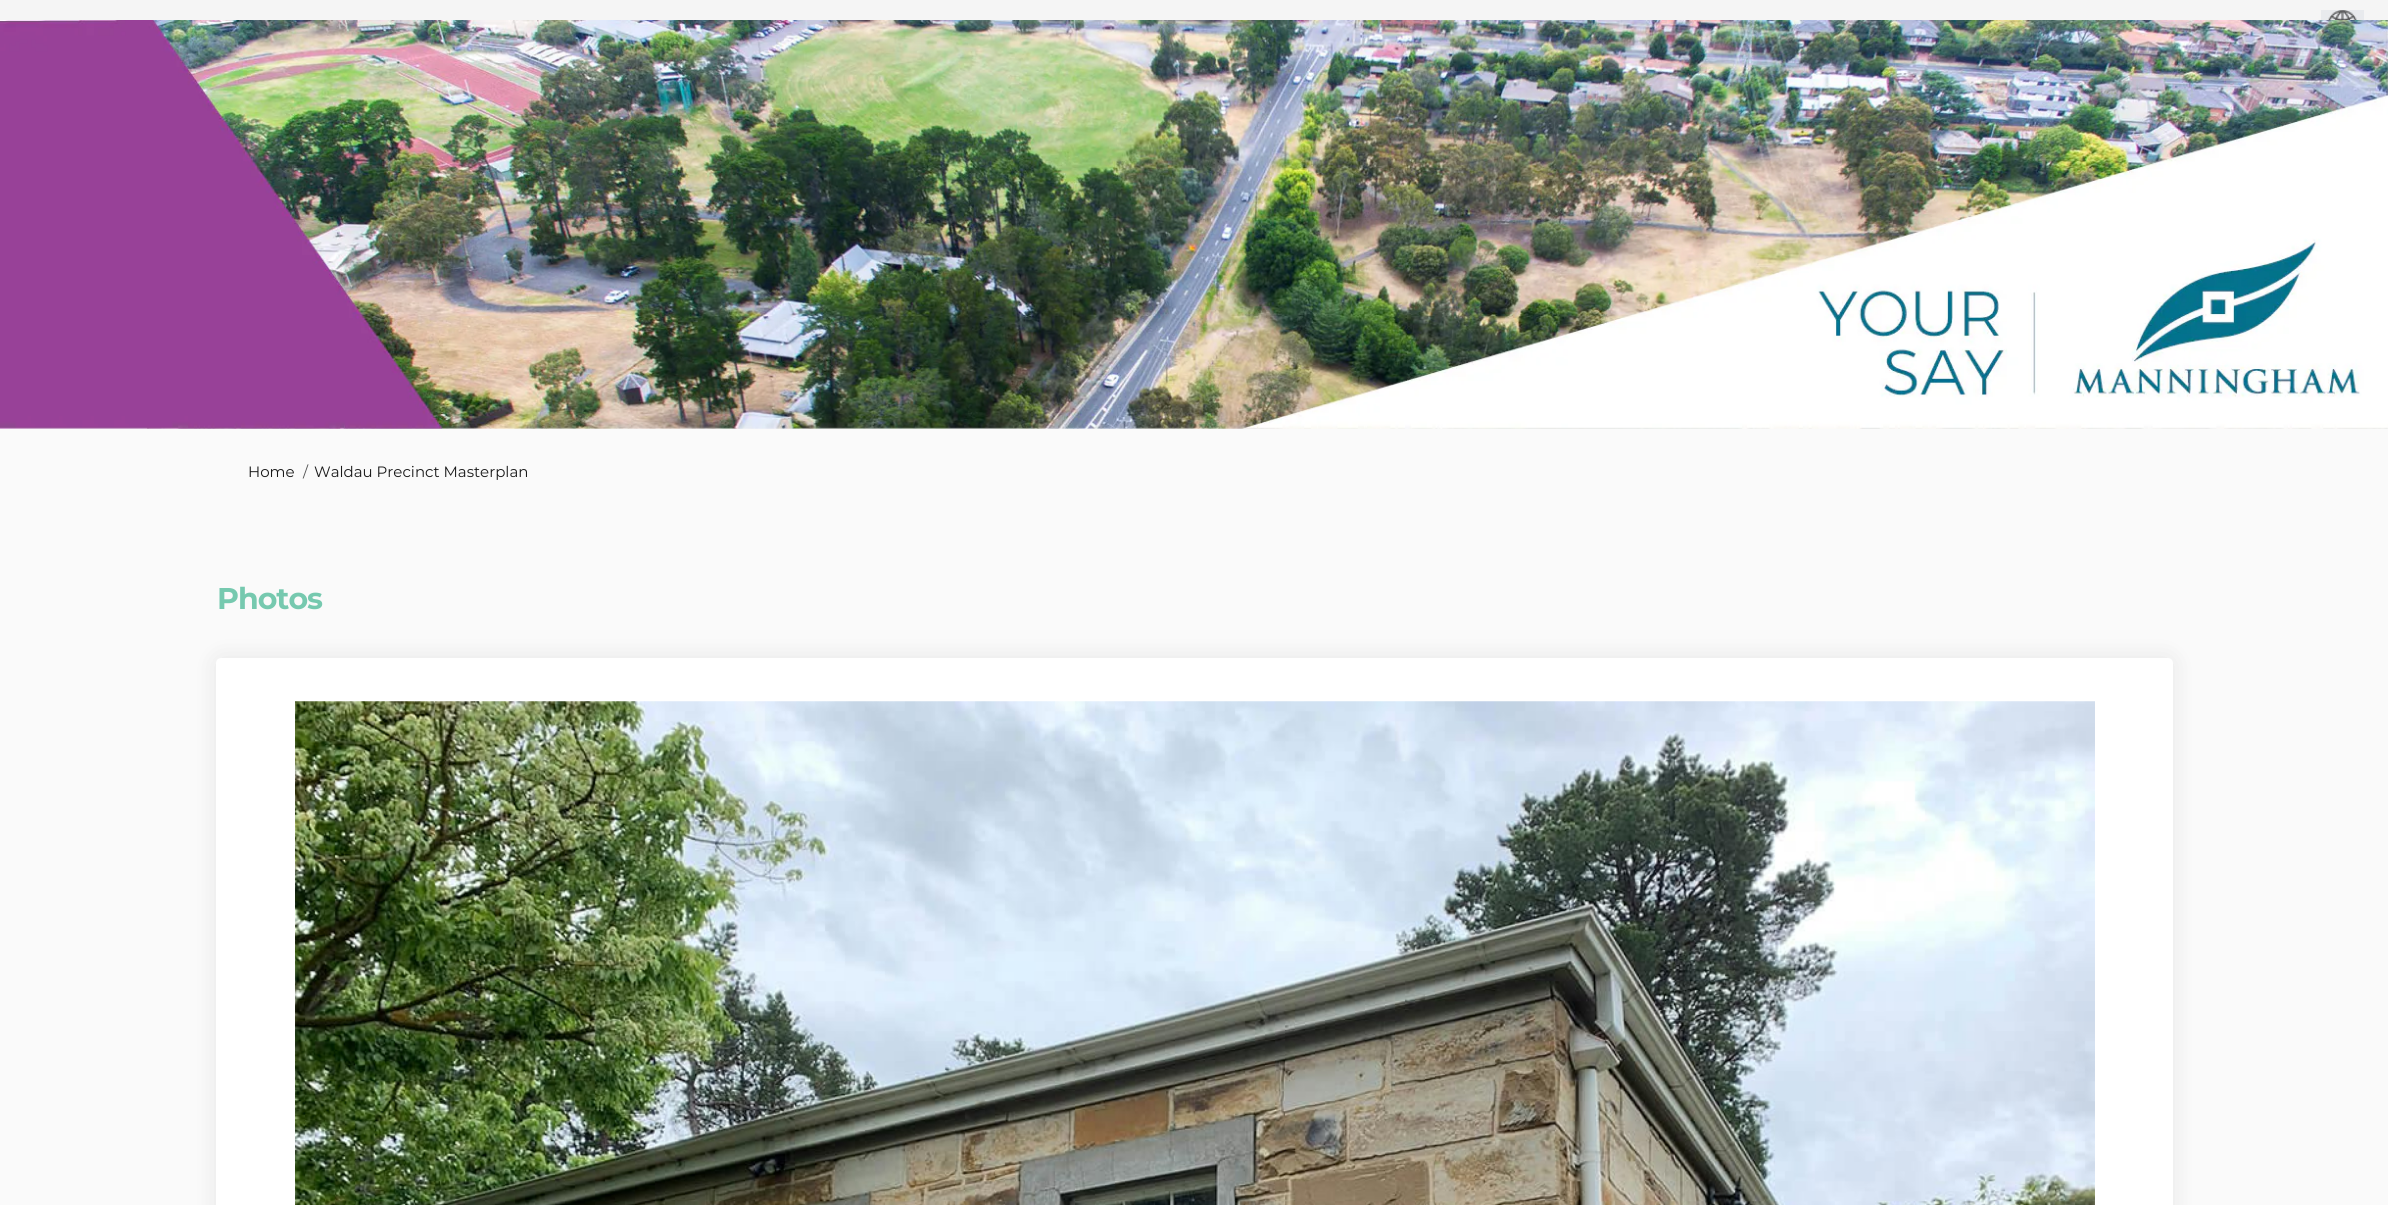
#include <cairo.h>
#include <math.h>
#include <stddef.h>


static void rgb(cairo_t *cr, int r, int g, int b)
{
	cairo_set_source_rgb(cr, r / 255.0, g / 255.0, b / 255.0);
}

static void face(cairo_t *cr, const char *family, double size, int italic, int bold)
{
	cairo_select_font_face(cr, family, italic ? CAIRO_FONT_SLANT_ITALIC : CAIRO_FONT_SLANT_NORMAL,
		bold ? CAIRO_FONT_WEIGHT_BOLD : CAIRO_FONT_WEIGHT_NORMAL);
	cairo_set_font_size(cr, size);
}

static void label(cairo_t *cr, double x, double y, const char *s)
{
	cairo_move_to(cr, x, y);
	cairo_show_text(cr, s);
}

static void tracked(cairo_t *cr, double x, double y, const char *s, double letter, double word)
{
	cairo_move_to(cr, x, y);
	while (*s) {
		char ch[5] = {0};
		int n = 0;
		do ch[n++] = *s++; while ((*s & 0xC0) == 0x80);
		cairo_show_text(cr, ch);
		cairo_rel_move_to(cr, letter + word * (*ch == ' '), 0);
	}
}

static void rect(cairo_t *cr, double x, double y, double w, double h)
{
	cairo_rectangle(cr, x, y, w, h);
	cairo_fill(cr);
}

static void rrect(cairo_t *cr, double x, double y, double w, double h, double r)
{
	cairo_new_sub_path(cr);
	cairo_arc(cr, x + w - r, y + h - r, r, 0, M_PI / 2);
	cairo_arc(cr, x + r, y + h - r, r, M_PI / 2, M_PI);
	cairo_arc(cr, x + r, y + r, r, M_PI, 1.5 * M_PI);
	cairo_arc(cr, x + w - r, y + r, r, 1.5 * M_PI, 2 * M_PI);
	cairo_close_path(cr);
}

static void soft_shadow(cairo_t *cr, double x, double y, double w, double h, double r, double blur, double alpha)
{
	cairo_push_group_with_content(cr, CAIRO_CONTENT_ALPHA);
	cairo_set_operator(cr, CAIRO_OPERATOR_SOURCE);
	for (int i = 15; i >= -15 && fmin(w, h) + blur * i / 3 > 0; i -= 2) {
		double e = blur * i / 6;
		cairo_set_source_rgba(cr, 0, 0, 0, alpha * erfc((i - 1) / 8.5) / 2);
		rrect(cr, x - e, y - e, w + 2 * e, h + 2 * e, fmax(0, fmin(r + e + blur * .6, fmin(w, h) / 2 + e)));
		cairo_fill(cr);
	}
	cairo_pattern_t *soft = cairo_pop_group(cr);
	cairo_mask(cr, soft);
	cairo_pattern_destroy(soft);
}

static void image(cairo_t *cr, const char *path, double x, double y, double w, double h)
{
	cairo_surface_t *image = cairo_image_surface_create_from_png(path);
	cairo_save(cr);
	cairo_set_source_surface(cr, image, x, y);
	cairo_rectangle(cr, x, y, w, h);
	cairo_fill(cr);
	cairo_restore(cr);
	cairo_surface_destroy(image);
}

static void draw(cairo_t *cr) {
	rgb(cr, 250, 250, 250);
	cairo_paint(cr);
	rgb(cr, 245, 245, 245);
	rect(cr, 0, 0, 2388, 20);
	rgb(cr, 232, 234, 237);
	rect(cr, 2321, 10, 43, 10);
	image(cr, "image0.png", 2328, 10, 29, 10);
	image(cr, "image1.png", 0, 20, 2388, 409);
	face(cr, "Montserrat", 15, 0, 0);
	rgb(cr, 26, 26, 26);
	label(cr, 248, 477, "Home");
	rgb(cr, 85, 85, 85);
	label(cr, 303, 477, "/");
	rgb(cr, 26, 26, 26);
	label(cr, 314, 477, "Waldau Precinct Masterplan");
	face(cr, "Montserrat", 30, 0, 1);
	rgb(cr, 118, 201, 175);
	tracked(cr, 217, 609, "Photos", -1, 0);
	rgb(cr, 0, 0, 0);
	soft_shadow(cr, 216, 658, 1957, 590, 5, 12.5, 0.08);
	rgb(cr, 255, 255, 255);
	rrect(cr, 219, 661, 1951, 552, 2);
	cairo_fill_preserve(cr);
	cairo_set_line_width(cr, 6);
	cairo_stroke(cr);
	image(cr, "image2.png", 295, 701, 1800, 504);
}

int main(void) {
	cairo_surface_t *surface = cairo_image_surface_create(CAIRO_FORMAT_RGB24, 2388, 1205);
	cairo_t *cr = cairo_create(surface);
	cairo_font_options_t *options = cairo_font_options_create();
	cairo_font_options_set_hint_metrics(options, CAIRO_HINT_METRICS_OFF);
	cairo_font_options_set_hint_style(options, CAIRO_HINT_STYLE_NONE);
	cairo_set_font_options(cr, options);
	cairo_set_miter_limit(cr, 4);
	draw(cr);
	cairo_surface_write_to_png(surface, "render.png");
	cairo_font_options_destroy(options);
	cairo_destroy(cr);
	cairo_surface_destroy(surface);
	return 0;
}
